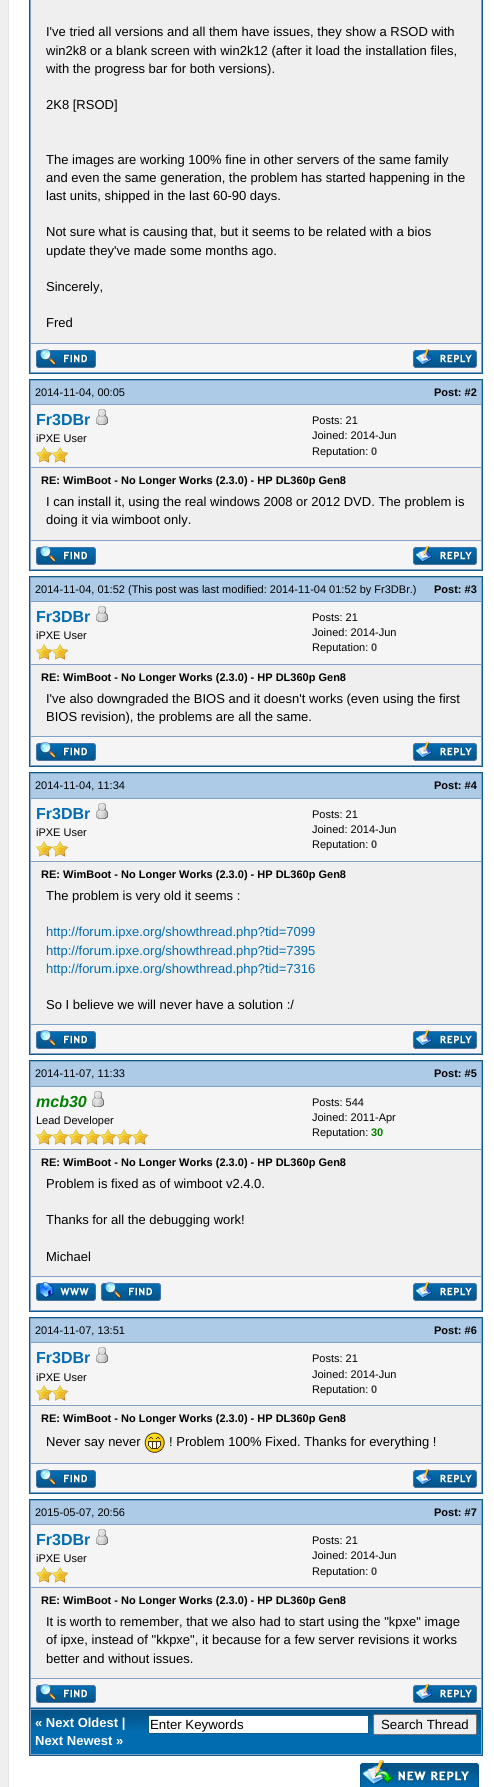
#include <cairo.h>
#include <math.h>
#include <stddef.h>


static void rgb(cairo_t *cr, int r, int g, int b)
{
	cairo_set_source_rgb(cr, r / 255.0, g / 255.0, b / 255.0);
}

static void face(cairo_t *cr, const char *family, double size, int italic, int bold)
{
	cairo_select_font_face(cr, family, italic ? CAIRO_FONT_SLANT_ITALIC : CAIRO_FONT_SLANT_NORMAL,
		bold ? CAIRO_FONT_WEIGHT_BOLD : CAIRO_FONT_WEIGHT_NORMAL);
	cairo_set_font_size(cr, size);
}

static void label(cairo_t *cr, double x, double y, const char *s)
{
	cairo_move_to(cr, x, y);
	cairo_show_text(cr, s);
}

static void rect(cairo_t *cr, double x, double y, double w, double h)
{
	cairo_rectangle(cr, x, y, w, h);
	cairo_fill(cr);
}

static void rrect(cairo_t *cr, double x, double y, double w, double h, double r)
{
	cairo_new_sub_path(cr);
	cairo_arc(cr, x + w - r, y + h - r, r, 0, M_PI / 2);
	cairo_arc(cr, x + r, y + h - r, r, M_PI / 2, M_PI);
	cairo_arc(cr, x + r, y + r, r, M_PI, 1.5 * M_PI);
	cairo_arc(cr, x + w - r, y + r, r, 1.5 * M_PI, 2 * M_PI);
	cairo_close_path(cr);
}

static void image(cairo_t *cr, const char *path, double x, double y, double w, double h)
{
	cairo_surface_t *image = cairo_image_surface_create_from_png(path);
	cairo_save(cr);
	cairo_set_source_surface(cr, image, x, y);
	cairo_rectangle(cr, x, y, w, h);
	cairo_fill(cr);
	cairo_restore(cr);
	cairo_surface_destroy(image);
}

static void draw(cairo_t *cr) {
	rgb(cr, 239, 239, 239);
	cairo_paint(cr);
	rgb(cr, 255, 255, 255);
	cairo_rectangle(cr, 8.5, -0.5, 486, 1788);
	cairo_fill_preserve(cr);
	rgb(cr, 228, 228, 228);
	cairo_set_line_width(cr, 1);
	cairo_stroke(cr);
	rgb(cr, 129, 162, 196);
	rect(cr, 30, 0, 452, 373);
	rgb(cr, 15, 92, 142);
	rect(cr, 482, 0, 1, 374);
	rect(cr, 29, 373, 454, 1);
	rect(cr, 29, 0, 1, 374);
	rgb(cr, 239, 239, 239);
	rect(cr, 31, 0, 450, 343);
	face(cr, "Liberation Sans", 13, 0, 0);
	rgb(cr, 0, 0, 0);
	label(cr, 46, 36, "I've tried all versions and all them have issues, they show a RSOD with");
	label(cr, 46, 55, "win2k8 or a blank screen with win2k12 (after it load the installation files,");
	label(cr, 46, 73, "with the progress bar for both versions).");
	label(cr, 46, 109, "2K8 [RSOD]");
	label(cr, 46, 164, "The images are working 100% fine in other servers of the same family");
	label(cr, 46, 182, "and even the same generation, the problem has started happening in the");
	label(cr, 46, 200, "last units, shipped in the last 60-90 days.");
	label(cr, 46, 236, "Not sure what is causing that, but it seems to be related with a bios");
	label(cr, 46, 255, "update they've made some months ago.");
	label(cr, 46, 291, "Sincerely,");
	label(cr, 46, 327, "Fred");
	rgb(cr, 245, 245, 245);
	rect(cr, 31, 344, 450, 28);
	image(cr, "image0.png", 36, 349, 60, 19);
	image(cr, "image1.png", 413, 349, 64, 19);
	rgb(cr, 129, 162, 196);
	cairo_rectangle(cr, 29.5, 379.5, 453, 191);
	cairo_fill_preserve(cr);
	rgb(cr, 15, 92, 142);
	cairo_stroke(cr);
	rgb(cr, 173, 203, 231);
	rect(cr, 31, 381, 450, 23);
	face(cr, "Liberation Sans", 11, 0, 0);
	rgb(cr, 0, 0, 0);
	label(cr, 35, 396, "2014-11-04, 00:05");
	face(cr, "Liberation Sans", 11, 0, 1);
	label(cr, 434, 396, "Post: #2");
	rgb(cr, 245, 245, 245);
	rect(cr, 31, 405, 450, 62);
	face(cr, "Liberation Sans", 16, 0, 1);
	rgb(cr, 2, 108, 177);
	label(cr, 36, 425, "Fr3DBr");
	image(cr, "image2.png", 96, 409, 12, 16);
	face(cr, "Liberation Sans", 11, 0, 0);
	rgb(cr, 0, 0, 0);
	label(cr, 36, 442, "iPXE User");
	image(cr, "image3.png", 36, 447, 16, 16);
	image(cr, "image3.png", 52, 447, 16, 16);
	label(cr, 312, 424, "Posts: 21");
	label(cr, 312, 439, "Joined: 2014-Jun");
	label(cr, 312, 455, "Reputation:");
	face(cr, "Liberation Sans", 11, 0, 1);
	rgb(cr, 68, 68, 68);
	label(cr, 371, 455, "0");
	rgb(cr, 239, 239, 239);
	rect(cr, 31, 468, 450, 72);
	rgb(cr, 0, 0, 0);
	label(cr, 41, 484, "RE: WimBoot - No Longer Works (2.3.0) - HP DL360p Gen8");
	face(cr, "Liberation Sans", 13, 0, 0);
	label(cr, 46, 506, "I can install it, using the real windows 2008 or 2012 DVD. The problem is");
	label(cr, 46, 524, "doing it via wimboot only.");
	rgb(cr, 245, 245, 245);
	rect(cr, 31, 541, 450, 28);
	image(cr, "image0.png", 36, 546, 60, 19);
	image(cr, "image1.png", 413, 546, 64, 19);
	rgb(cr, 129, 162, 196);
	cairo_rectangle(cr, 29.5, 576.5, 453, 190);
	cairo_fill_preserve(cr);
	rgb(cr, 15, 92, 142);
	cairo_stroke(cr);
	rgb(cr, 173, 203, 231);
	rect(cr, 31, 578, 450, 23);
	face(cr, "Liberation Sans", 11, 0, 0);
	rgb(cr, 0, 0, 0);
	label(cr, 35, 593, "2014-11-04, 01:52 (This post was last modified: 2014-11-04 01:52 by Fr3DBr.)");
	face(cr, "Liberation Sans", 11, 0, 1);
	label(cr, 434, 593, "Post: #3");
	rgb(cr, 245, 245, 245);
	rect(cr, 31, 602, 450, 62);
	face(cr, "Liberation Sans", 16, 0, 1);
	rgb(cr, 2, 108, 177);
	label(cr, 36, 622, "Fr3DBr");
	image(cr, "image2.png", 96, 606, 12, 16);
	face(cr, "Liberation Sans", 11, 0, 0);
	rgb(cr, 0, 0, 0);
	label(cr, 36, 639, "iPXE User");
	image(cr, "image3.png", 36, 644, 16, 16);
	image(cr, "image3.png", 52, 644, 16, 16);
	label(cr, 312, 621, "Posts: 21");
	label(cr, 312, 636, "Joined: 2014-Jun");
	label(cr, 312, 651, "Reputation:");
	face(cr, "Liberation Sans", 11, 0, 1);
	rgb(cr, 68, 68, 68);
	label(cr, 371, 651, "0");
	rgb(cr, 239, 239, 239);
	rect(cr, 31, 665, 450, 71);
	rgb(cr, 0, 0, 0);
	label(cr, 41, 681, "RE: WimBoot - No Longer Works (2.3.0) - HP DL360p Gen8");
	face(cr, "Liberation Sans", 13, 0, 0);
	label(cr, 46, 703, "I've also downgraded the BIOS and it doesn't works (even using the first");
	label(cr, 46, 721, "BIOS revision), the problems are all the same.");
	rgb(cr, 245, 245, 245);
	rect(cr, 31, 737, 450, 28);
	image(cr, "image0.png", 36, 742, 60, 19);
	image(cr, "image1.png", 413, 742, 64, 19);
	rgb(cr, 129, 162, 196);
	cairo_rectangle(cr, 29.5, 772.5, 453, 282);
	cairo_fill_preserve(cr);
	rgb(cr, 15, 92, 142);
	cairo_stroke(cr);
	rgb(cr, 173, 203, 231);
	rect(cr, 31, 774, 450, 24);
	face(cr, "Liberation Sans", 11, 0, 0);
	rgb(cr, 0, 0, 0);
	label(cr, 35, 789, "2014-11-04, 11:34");
	face(cr, "Liberation Sans", 11, 0, 1);
	label(cr, 434, 789, "Post: #4");
	rgb(cr, 245, 245, 245);
	rect(cr, 31, 799, 450, 62);
	face(cr, "Liberation Sans", 16, 0, 1);
	rgb(cr, 2, 108, 177);
	label(cr, 36, 819, "Fr3DBr");
	image(cr, "image2.png", 96, 803, 12, 16);
	face(cr, "Liberation Sans", 11, 0, 0);
	rgb(cr, 0, 0, 0);
	label(cr, 36, 836, "iPXE User");
	image(cr, "image3.png", 36, 841, 16, 16);
	image(cr, "image3.png", 52, 841, 16, 16);
	label(cr, 312, 818, "Posts: 21");
	label(cr, 312, 833, "Joined: 2014-Jun");
	label(cr, 312, 848, "Reputation:");
	face(cr, "Liberation Sans", 11, 0, 1);
	rgb(cr, 68, 68, 68);
	label(cr, 371, 848, "0");
	rgb(cr, 239, 239, 239);
	rect(cr, 31, 862, 450, 162);
	rgb(cr, 0, 0, 0);
	label(cr, 41, 878, "RE: WimBoot - No Longer Works (2.3.0) - HP DL360p Gen8");
	face(cr, "Liberation Sans", 13, 0, 0);
	label(cr, 46, 900, "The problem is very old it seems :");
	rgb(cr, 2, 108, 177);
	label(cr, 46, 936, "http://forum.ipxe.org/showthread.php?tid=7099");
	label(cr, 46, 955, "http://forum.ipxe.org/showthread.php?tid=7395");
	label(cr, 46, 973, "http://forum.ipxe.org/showthread.php?tid=7316");
	rgb(cr, 0, 0, 0);
	label(cr, 46, 1009, "So I believe we will never have a solution :/");
	rgb(cr, 245, 245, 245);
	rect(cr, 31, 1025, 450, 28);
	image(cr, "image0.png", 36, 1030, 60, 19);
	image(cr, "image1.png", 413, 1030, 64, 19);
	rgb(cr, 129, 162, 196);
	cairo_rectangle(cr, 29.5, 1060.5, 453, 251);
	cairo_fill_preserve(cr);
	rgb(cr, 15, 92, 142);
	cairo_stroke(cr);
	rgb(cr, 173, 203, 231);
	rect(cr, 31, 1062, 450, 24);
	face(cr, "Liberation Sans", 11, 0, 0);
	rgb(cr, 0, 0, 0);
	label(cr, 35, 1077, "2014-11-07, 11:33");
	face(cr, "Liberation Sans", 11, 0, 1);
	label(cr, 434, 1077, "Post: #5");
	rgb(cr, 245, 245, 245);
	rect(cr, 31, 1087, 450, 62);
	face(cr, "Liberation Sans", 16, 1, 1);
	rgb(cr, 0, 128, 0);
	label(cr, 36, 1107, "mcb30");
	image(cr, "image2.png", 92, 1091, 12, 16);
	face(cr, "Liberation Sans", 11, 0, 0);
	rgb(cr, 0, 0, 0);
	label(cr, 36, 1124, "Lead Developer");
	image(cr, "image3.png", 36, 1129, 16, 16);
	image(cr, "image3.png", 52, 1129, 16, 16);
	image(cr, "image3.png", 68, 1129, 16, 16);
	image(cr, "image3.png", 84, 1129, 16, 16);
	image(cr, "image3.png", 100, 1129, 16, 16);
	image(cr, "image3.png", 116, 1129, 16, 16);
	image(cr, "image3.png", 132, 1129, 16, 16);
	label(cr, 312, 1106, "Posts: 544");
	label(cr, 312, 1121, "Joined: 2011-Apr");
	label(cr, 312, 1136, "Reputation:");
	face(cr, "Liberation Sans", 11, 0, 1);
	rgb(cr, 0, 128, 0);
	label(cr, 371, 1136, "30");
	rgb(cr, 239, 239, 239);
	rect(cr, 31, 1150, 450, 126);
	rgb(cr, 0, 0, 0);
	label(cr, 41, 1166, "RE: WimBoot - No Longer Works (2.3.0) - HP DL360p Gen8");
	face(cr, "Liberation Sans", 13, 0, 0);
	label(cr, 46, 1188, "Problem is fixed as of wimboot v2.4.0.");
	label(cr, 46, 1224, "Thanks for all the debugging work!");
	label(cr, 46, 1261, "Michael");
	rgb(cr, 245, 245, 245);
	rect(cr, 31, 1277, 450, 33);
	image(cr, "image4.png", 36, 1282, 60, 19);
	image(cr, "image0.png", 101, 1282, 60, 19);
	image(cr, "image1.png", 413, 1282, 64, 19);
	rgb(cr, 129, 162, 196);
	cairo_rectangle(cr, 29.5, 1317.5, 453, 176);
	cairo_fill_preserve(cr);
	rgb(cr, 15, 92, 142);
	cairo_stroke(cr);
	rgb(cr, 173, 203, 231);
	rect(cr, 31, 1319, 450, 23);
	face(cr, "Liberation Sans", 11, 0, 0);
	rgb(cr, 0, 0, 0);
	label(cr, 35, 1334, "2014-11-07, 13:51");
	face(cr, "Liberation Sans", 11, 0, 1);
	label(cr, 434, 1334, "Post: #6");
	rgb(cr, 245, 245, 245);
	rect(cr, 31, 1343, 450, 62);
	face(cr, "Liberation Sans", 16, 0, 1);
	rgb(cr, 2, 108, 177);
	label(cr, 36, 1363, "Fr3DBr");
	image(cr, "image2.png", 96, 1347, 12, 16);
	face(cr, "Liberation Sans", 11, 0, 0);
	rgb(cr, 0, 0, 0);
	label(cr, 36, 1381, "iPXE User");
	image(cr, "image3.png", 36, 1385, 16, 16);
	image(cr, "image3.png", 52, 1385, 16, 16);
	label(cr, 312, 1362, "Posts: 21");
	label(cr, 312, 1378, "Joined: 2014-Jun");
	label(cr, 312, 1393, "Reputation:");
	face(cr, "Liberation Sans", 11, 0, 1);
	rgb(cr, 68, 68, 68);
	label(cr, 371, 1393, "0");
	rgb(cr, 239, 239, 239);
	rect(cr, 31, 1406, 450, 57);
	rgb(cr, 0, 0, 0);
	label(cr, 41, 1422, "RE: WimBoot - No Longer Works (2.3.0) - HP DL360p Gen8");
	face(cr, "Liberation Sans", 13, 0, 0);
	label(cr, 46, 1446, "Never say never");
	image(cr, "image5.png", 144, 1432, 21, 21);
	label(cr, 169, 1446, "! Problem 100% Fixed. Thanks for everything !");
	rgb(cr, 245, 245, 245);
	rect(cr, 31, 1464, 450, 28);
	image(cr, "image0.png", 36, 1469, 60, 19);
	image(cr, "image1.png", 413, 1469, 64, 19);
	rgb(cr, 129, 162, 196);
	cairo_rectangle(cr, 29.5, 1499.5, 453, 209);
	cairo_fill_preserve(cr);
	rgb(cr, 15, 92, 142);
	cairo_stroke(cr);
	rgb(cr, 173, 203, 231);
	rect(cr, 31, 1501, 450, 23);
	face(cr, "Liberation Sans", 11, 0, 0);
	rgb(cr, 0, 0, 0);
	label(cr, 35, 1516, "2015-05-07, 20:56");
	face(cr, "Liberation Sans", 11, 0, 1);
	label(cr, 434, 1516, "Post: #7");
	rgb(cr, 245, 245, 245);
	rect(cr, 31, 1525, 450, 62);
	face(cr, "Liberation Sans", 16, 0, 1);
	rgb(cr, 2, 108, 177);
	label(cr, 36, 1545, "Fr3DBr");
	image(cr, "image2.png", 96, 1529, 12, 16);
	face(cr, "Liberation Sans", 11, 0, 0);
	rgb(cr, 0, 0, 0);
	label(cr, 36, 1562, "iPXE User");
	image(cr, "image3.png", 36, 1567, 16, 16);
	image(cr, "image3.png", 52, 1567, 16, 16);
	label(cr, 312, 1544, "Posts: 21");
	label(cr, 312, 1559, "Joined: 2014-Jun");
	label(cr, 312, 1575, "Reputation:");
	face(cr, "Liberation Sans", 11, 0, 1);
	rgb(cr, 68, 68, 68);
	label(cr, 371, 1575, "0");
	rgb(cr, 239, 239, 239);
	rect(cr, 31, 1588, 450, 90);
	rgb(cr, 0, 0, 0);
	label(cr, 41, 1604, "RE: WimBoot - No Longer Works (2.3.0) - HP DL360p Gen8");
	face(cr, "Liberation Sans", 13, 0, 0);
	label(cr, 46, 1626, "It is worth to remember, that we also had to start using the \"kpxe\" image");
	label(cr, 46, 1644, "of ipxe, instead of \"kkpxe\", it because for a few server revisions it works");
	label(cr, 46, 1663, "better and without issues.");
	rgb(cr, 245, 245, 245);
	rect(cr, 31, 1679, 450, 28);
	image(cr, "image0.png", 36, 1684, 60, 19);
	image(cr, "image1.png", 413, 1684, 64, 19);
	rgb(cr, 129, 162, 196);
	rect(cr, 30, 1709, 452, 46);
	rgb(cr, 15, 92, 142);
	rect(cr, 482, 1709, 1, 47);
	rect(cr, 29, 1755, 454, 1);
	rect(cr, 29, 1709, 1, 47);
	rgb(cr, 2, 108, 177);
	rect(cr, 31, 1730, 450, 24);
	image(cr, "image6.png", 31, 1710, 450, 20);
	face(cr, "Liberation Sans", 13, 0, 1);
	rgb(cr, 255, 255, 255);
	label(cr, 35, 1727, "« Next Oldest |");
	label(cr, 35, 1745, "Next Newest »");
	cairo_rectangle(cr, 148.5, 1715.5, 220, 18);
	cairo_fill_preserve(cr);
	rgb(cr, 15, 92, 142);
	cairo_stroke(cr);
	face(cr, "Liberation Sans", 13.25, 0, 0);
	rgb(cr, 0, 0, 0);
	label(cr, 150, 1729, "Enter Keywords");
	rgb(cr, 239, 239, 239);
	rrect(cr, 373.5, 1714.5, 103, 20, 1.5);
	cairo_fill_preserve(cr);
	rgb(cr, 118, 118, 118);
	cairo_stroke(cr);
	rgb(cr, 0, 0, 0);
	label(cr, 381, 1729, "Search Thread");
	image(cr, "image7.png", 360, 1760, 119, 27);
}

int main(void) {
	cairo_surface_t *surface = cairo_image_surface_create(CAIRO_FORMAT_RGB24, 494, 1787);
	cairo_t *cr = cairo_create(surface);
	cairo_font_options_t *options = cairo_font_options_create();
	cairo_font_options_set_hint_metrics(options, CAIRO_HINT_METRICS_OFF);
	cairo_font_options_set_hint_style(options, CAIRO_HINT_STYLE_NONE);
	cairo_set_font_options(cr, options);
	cairo_set_miter_limit(cr, 4);
	draw(cr);
	cairo_surface_write_to_png(surface, "render.png");
	cairo_font_options_destroy(options);
	cairo_destroy(cr);
	cairo_surface_destroy(surface);
	return 0;
}
